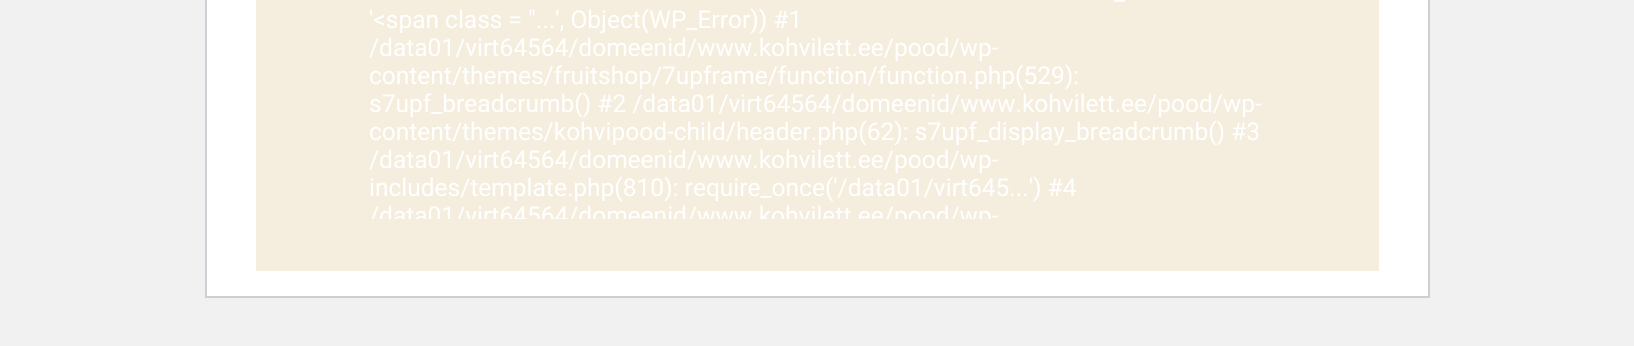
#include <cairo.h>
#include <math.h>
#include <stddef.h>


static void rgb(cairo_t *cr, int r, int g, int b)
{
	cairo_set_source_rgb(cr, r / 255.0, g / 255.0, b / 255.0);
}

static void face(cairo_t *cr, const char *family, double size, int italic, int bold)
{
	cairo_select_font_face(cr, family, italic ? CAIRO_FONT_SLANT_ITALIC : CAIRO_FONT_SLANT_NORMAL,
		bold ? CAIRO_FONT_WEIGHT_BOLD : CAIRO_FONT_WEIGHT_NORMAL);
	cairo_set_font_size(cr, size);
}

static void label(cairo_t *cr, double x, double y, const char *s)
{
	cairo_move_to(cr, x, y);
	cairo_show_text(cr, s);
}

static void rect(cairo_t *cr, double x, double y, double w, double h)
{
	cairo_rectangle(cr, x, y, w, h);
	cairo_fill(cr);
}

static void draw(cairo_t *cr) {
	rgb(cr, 241, 241, 241);
	cairo_paint(cr);
	rgb(cr, 255, 255, 255);
	cairo_rectangle(cr, 206, -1, 1223, 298);
	cairo_fill_preserve(cr);
	rgb(cr, 204, 208, 212);
	cairo_stroke(cr);
	rgb(cr, 245, 238, 222);
	rect(cr, 256, 0, 1123, 271);
	face(cr, "Roboto", 24.5, 0, 0);
	rgb(cr, 255, 255, 255);
	label(cr, 1114, 0, "_");
	label(cr, 369, 28, "'<span class = \"...', Object(WP_Error)) #1");
	label(cr, 369, 56, "/data01/virt64564/domeenid/www.kohvilett.ee/pood/wp-");
	label(cr, 369, 84, "content/themes/fruitshop/7upframe/function/function.php(529):");
	label(cr, 369, 112, "s7upf_breadcrumb() #2 /data01/virt64564/domeenid/www.kohvilett.ee/pood/wp-");
	label(cr, 369, 140, "content/themes/kohvipood-child/header.php(62): s7upf_display_breadcrumb() #3");
	label(cr, 369, 168, "/data01/virt64564/domeenid/www.kohvilett.ee/pood/wp-");
	label(cr, 369, 196, "includes/template.php(810): require_once('/data01/virt645...') #4");
	cairo_save(cr);
	cairo_rectangle(cr, 282, 0, 1071, 219);
	cairo_clip(cr);
	label(cr, 369, 224, "/data01/virt64564/domeenid/www.kohvilett.ee/pood/wp-");
	cairo_restore(cr);
}

int main(void) {
	cairo_surface_t *surface = cairo_image_surface_create(CAIRO_FORMAT_RGB24, 1634, 346);
	cairo_t *cr = cairo_create(surface);
	cairo_font_options_t *options = cairo_font_options_create();
	cairo_font_options_set_hint_metrics(options, CAIRO_HINT_METRICS_OFF);
	cairo_font_options_set_hint_style(options, CAIRO_HINT_STYLE_NONE);
	cairo_set_font_options(cr, options);
	cairo_set_miter_limit(cr, 4);
	draw(cr);
	cairo_surface_write_to_png(surface, "render.png");
	cairo_font_options_destroy(options);
	cairo_destroy(cr);
	cairo_surface_destroy(surface);
	return 0;
}
